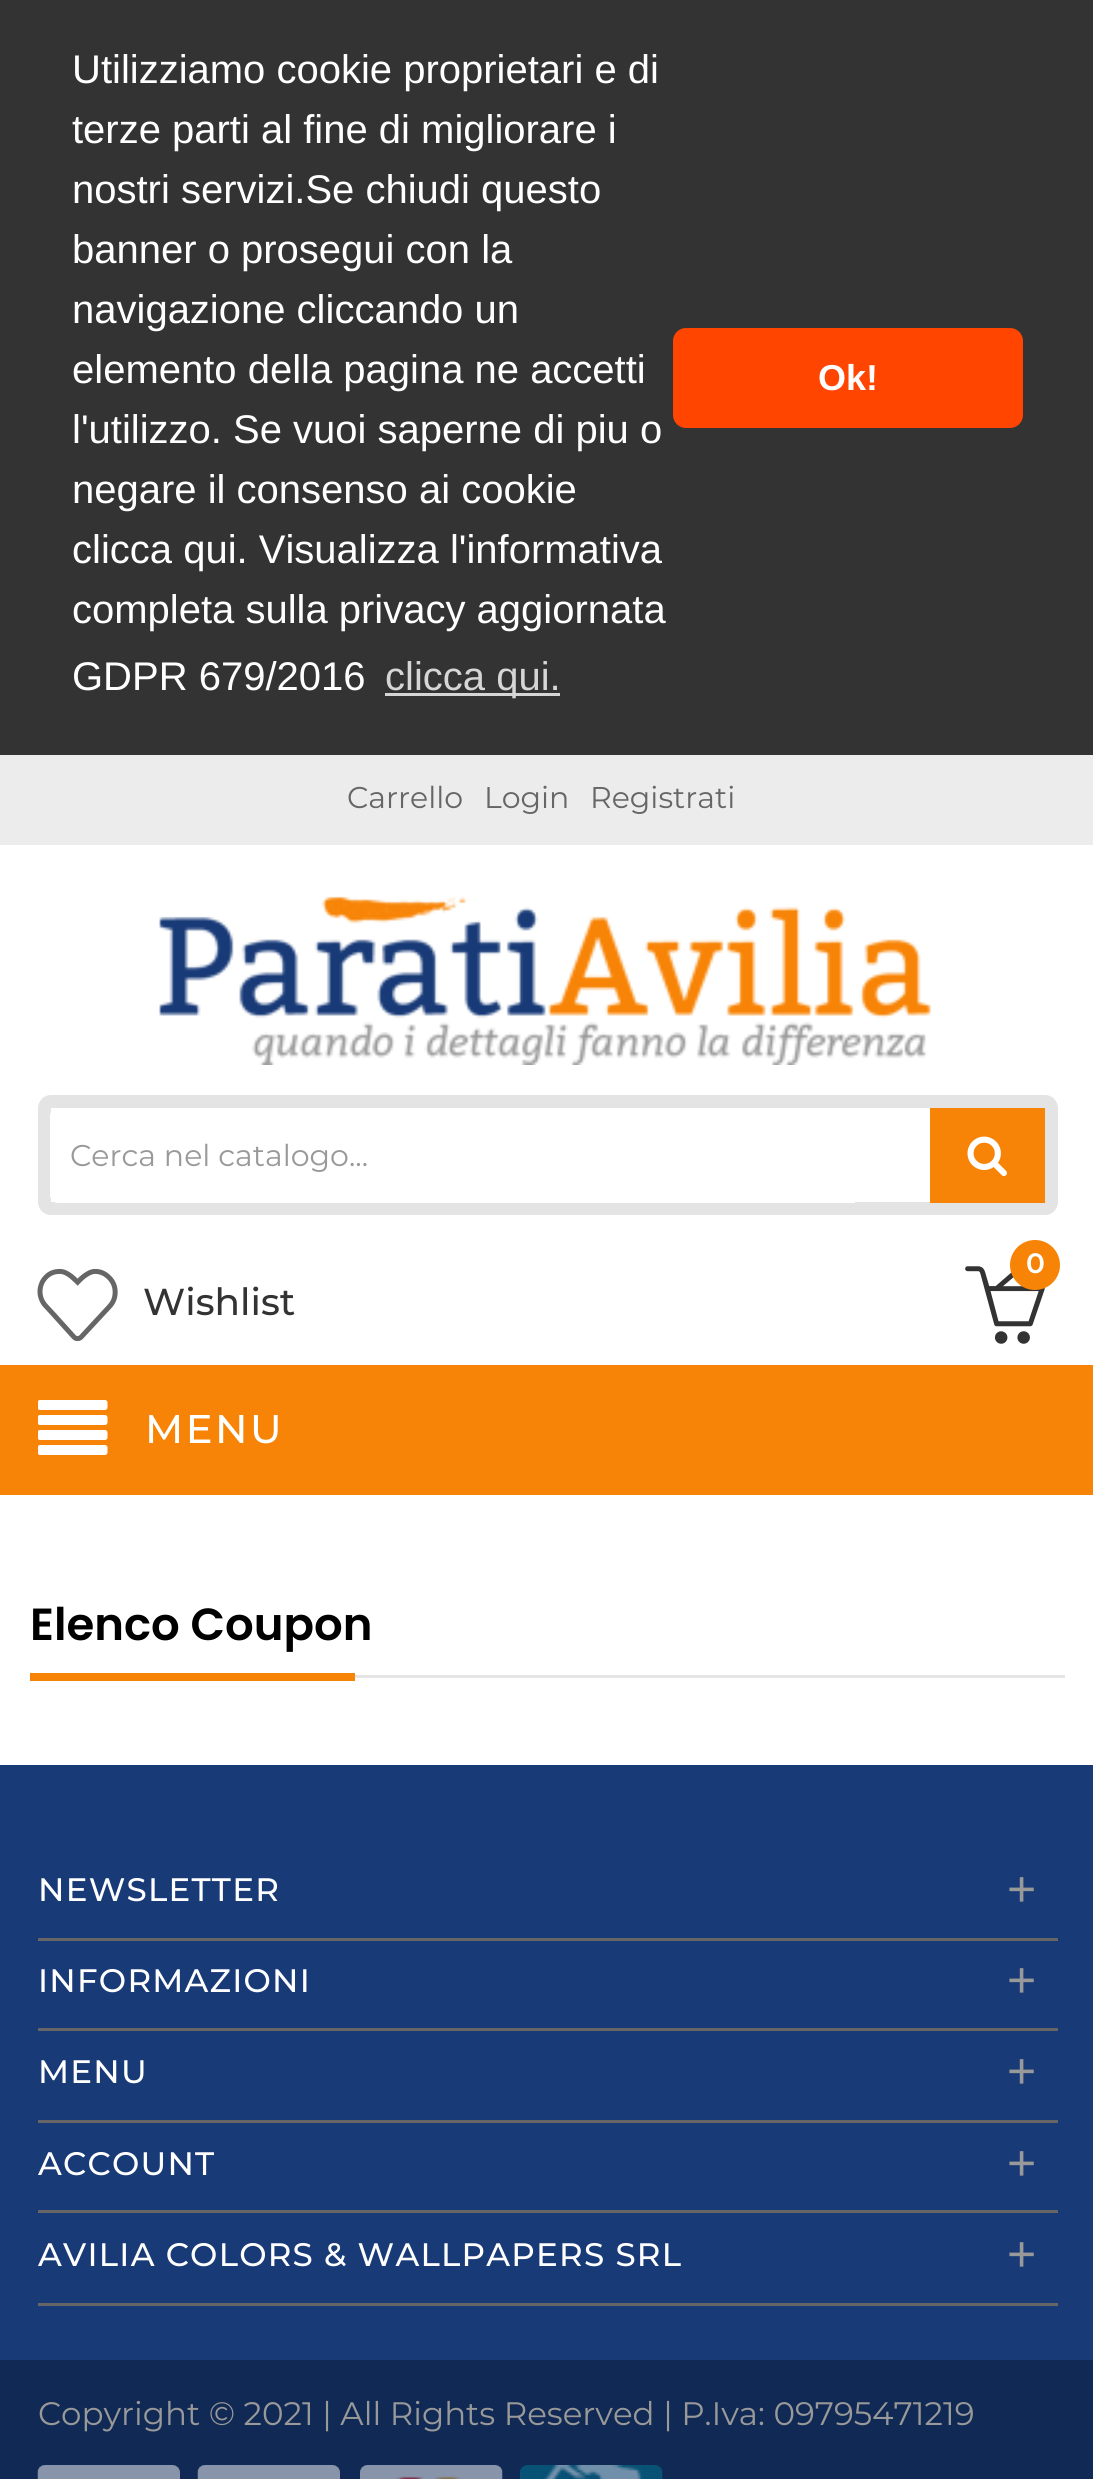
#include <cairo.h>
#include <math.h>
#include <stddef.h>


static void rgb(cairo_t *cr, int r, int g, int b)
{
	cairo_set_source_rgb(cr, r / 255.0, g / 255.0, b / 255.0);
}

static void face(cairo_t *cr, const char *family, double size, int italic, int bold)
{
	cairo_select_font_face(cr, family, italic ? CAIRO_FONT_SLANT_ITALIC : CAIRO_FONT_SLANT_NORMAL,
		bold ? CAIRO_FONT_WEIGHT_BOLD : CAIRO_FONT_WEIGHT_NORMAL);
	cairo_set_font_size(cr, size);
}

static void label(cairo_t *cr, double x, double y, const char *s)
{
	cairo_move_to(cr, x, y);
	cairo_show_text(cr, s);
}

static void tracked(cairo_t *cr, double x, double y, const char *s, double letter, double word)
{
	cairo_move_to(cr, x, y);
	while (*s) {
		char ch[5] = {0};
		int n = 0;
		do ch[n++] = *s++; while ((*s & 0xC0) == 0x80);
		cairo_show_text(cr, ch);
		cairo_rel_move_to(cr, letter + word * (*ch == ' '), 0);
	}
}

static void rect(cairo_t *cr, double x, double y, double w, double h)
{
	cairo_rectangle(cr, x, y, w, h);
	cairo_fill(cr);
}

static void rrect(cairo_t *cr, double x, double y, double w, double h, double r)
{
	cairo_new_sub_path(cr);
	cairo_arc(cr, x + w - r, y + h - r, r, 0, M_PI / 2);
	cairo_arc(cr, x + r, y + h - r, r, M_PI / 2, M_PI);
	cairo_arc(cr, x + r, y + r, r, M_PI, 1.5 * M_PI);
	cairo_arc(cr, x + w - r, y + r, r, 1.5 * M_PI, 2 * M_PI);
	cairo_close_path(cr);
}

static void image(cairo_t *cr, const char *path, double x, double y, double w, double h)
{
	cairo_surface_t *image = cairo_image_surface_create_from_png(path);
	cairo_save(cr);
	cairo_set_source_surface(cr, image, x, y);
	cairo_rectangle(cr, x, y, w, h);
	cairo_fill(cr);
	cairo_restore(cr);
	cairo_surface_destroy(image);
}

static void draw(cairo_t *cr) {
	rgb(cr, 255, 255, 255);
	cairo_paint(cr);
	rgb(cr, 51, 51, 51);
	rect(cr, 0, 0, 1093, 755);
	face(cr, "Liberation Sans", 40, 0, 0);
	rgb(cr, 255, 255, 255);
	label(cr, 72, 83, "Utilizziamo cookie proprietari e di");
	label(cr, 72, 143, "terze parti al fine di migliorare i");
	label(cr, 72, 203, "nostri servizi.Se chiudi questo");
	label(cr, 72, 263, "banner o prosegui con la");
	label(cr, 72, 323, "navigazione cliccando un");
	label(cr, 72, 383, "elemento della pagina ne accetti");
	label(cr, 72, 443, "l'utilizzo. Se vuoi saperne di piu o");
	label(cr, 72, 503, "negare il consenso ai cookie");
	label(cr, 72, 563, "clicca qui. Visualizza l'informativa");
	label(cr, 72, 623, "completa sulla privacy aggiornata");
	label(cr, 72, 690, "GDPR 679/2016");
	rgb(cr, 214, 214, 214);
	rect(cr, 385, 693, 175, 3);
	label(cr, 385, 690, "clicca qui.");
	rgb(cr, 255, 69, 0);
	rrect(cr, 673, 328, 350, 100, 13);
	cairo_fill(cr);
	face(cr, "Liberation Sans", 36, 0, 1);
	rgb(cr, 255, 255, 255);
	label(cr, 818, 390, "Ok!");
	rgb(cr, 236, 236, 236);
	rect(cr, 0, 755, 1093, 90);
	face(cr, "Montserrat", 30, 0, 0);
	rgb(cr, 102, 102, 102);
	label(cr, 347, 808, "Carrello");
	label(cr, 484, 808, "Login");
	label(cr, 590, 808, "Registrati");
	image(cr, "image0.png", 159, 896, 772, 169);
	rrect(cr, 44.5, 1101.5, 1007, 107, 6.5);
	rgb(cr, 228, 228, 228);
	cairo_set_line_width(cr, 13);
	cairo_stroke(cr);
	rgb(cr, 255, 255, 255);
	cairo_new_path(cr);
	cairo_move_to(cr, 58, 1108);
	cairo_line_to(cr, 855, 1108);
	cairo_line_to(cr, 855, 1203);
	cairo_line_to(cr, 58, 1203);
	cairo_curve_to(cr, 53.5, 1203, 50, 1199.5, 50, 1195);
	cairo_line_to(cr, 50, 1116);
	cairo_curve_to(cr, 50, 1111.5, 53.5, 1108, 58, 1108);
	cairo_close_path(cr);
	cairo_fill(cr);
	rgb(cr, 153, 153, 153);
	label(cr, 70, 1166, "Cerca nel catalogo...");
	rgb(cr, 247, 132, 6);
	rect(cr, 930, 1108, 115, 95);
	image(cr, "image1.png", 967, 1136, 40, 40);
	image(cr, "image2.png", 965, 1266, 80, 78);
	cairo_arc(cr, 1035, 1265, 25, 0, 2 * M_PI);
	cairo_fill(cr);
	face(cr, "Montserrat SemiBold", 28, 0, 0);
	rgb(cr, 255, 255, 255);
	label(cr, 1026, 1273, "0");
	image(cr, "image3.png", 37, 1268, 81, 74);
	face(cr, "Montserrat Medium", 37.5, 0, 0);
	rgb(cr, 51, 51, 51);
	label(cr, 143, 1315, "Wishlist");
	rgb(cr, 247, 132, 6);
	rect(cr, 0, 1365, 1093, 130);
	image(cr, "image4.png", 38, 1400, 70, 55);
	face(cr, "Montserrat Medium", 40, 0, 0);
	rgb(cr, 255, 255, 255);
	tracked(cr, 145, 1443, "MENU", 2.5, 0);
	rgb(cr, 229, 229, 229);
	rect(cr, 355, 1675, 710, 3);
	face(cr, "Poppins SemiBold", 45, 0, 0);
	rgb(cr, 0, 0, 0);
	label(cr, 30, 1640, "Elenco Coupon");
	rgb(cr, 247, 132, 6);
	rect(cr, 30, 1673, 325, 8);
	rgb(cr, 24, 58, 119);
	rect(cr, 0, 1765, 1093, 595);
	rgb(cr, 102, 102, 102);
	rect(cr, 38, 1938, 1020, 3);
	face(cr, "Montserrat Medium", 32.5, 0, 0);
	rgb(cr, 255, 255, 255);
	tracked(cr, 38, 1901, "NEWSLETTER", 1.25, 0);
	face(cr, "Liberation Sans", 50, 0, 0);
	rgb(cr, 153, 153, 153);
	tracked(cr, 1007, 1906, "+", 1.25, 0);
	rgb(cr, 102, 102, 102);
	rect(cr, 38, 2028, 1020, 3);
	face(cr, "Montserrat Medium", 32.5, 0, 0);
	rgb(cr, 255, 255, 255);
	tracked(cr, 38, 1992, "INFORMAZIONI", 1.25, 0);
	face(cr, "Liberation Sans", 50, 0, 0);
	rgb(cr, 153, 153, 153);
	tracked(cr, 1007, 1997, "+", 1.25, 0);
	rgb(cr, 102, 102, 102);
	rect(cr, 38, 2120, 1020, 3);
	face(cr, "Montserrat Medium", 32.5, 0, 0);
	rgb(cr, 255, 255, 255);
	tracked(cr, 38, 2083, "MENU", 1.25, 0);
	face(cr, "Liberation Sans", 50, 0, 0);
	rgb(cr, 153, 153, 153);
	tracked(cr, 1007, 2088, "+", 1.25, 0);
	rgb(cr, 102, 102, 102);
	rect(cr, 38, 2210, 1020, 3);
	face(cr, "Montserrat Medium", 32.5, 0, 0);
	rgb(cr, 255, 255, 255);
	tracked(cr, 38, 2175, "ACCOUNT", 1.25, 0);
	face(cr, "Liberation Sans", 50, 0, 0);
	rgb(cr, 153, 153, 153);
	tracked(cr, 1007, 2180, "+", 1.25, 0);
	rgb(cr, 102, 102, 102);
	rect(cr, 38, 2303, 1020, 3);
	face(cr, "Montserrat Medium", 32.5, 0, 0);
	rgb(cr, 255, 255, 255);
	tracked(cr, 38, 2266, "AVILIA COLORS & WALLPAPERS SRL", 1.25, 0);
	face(cr, "Liberation Sans", 50, 0, 0);
	rgb(cr, 153, 153, 153);
	tracked(cr, 1007, 2271, "+", 1.25, 0);
	rgb(cr, 16, 41, 85);
	rect(cr, 0, 2360, 1093, 119);
	face(cr, "Montserrat", 32.5, 0, 0);
	rgb(cr, 153, 153, 153);
	label(cr, 38, 2425, "Copyright © 2021 | All Rights Reserved | P.Iva: 09795471219");
	image(cr, "image5.png", 37, 2465, 143, 14);
	image(cr, "image5.png", 197, 2465, 143, 14);
	image(cr, "image6.png", 360, 2465, 143, 14);
	image(cr, "image7.png", 520, 2465, 143, 14);
}

int main(void) {
	cairo_surface_t *surface = cairo_image_surface_create(CAIRO_FORMAT_RGB24, 1093, 2479);
	cairo_t *cr = cairo_create(surface);
	cairo_font_options_t *options = cairo_font_options_create();
	cairo_font_options_set_hint_metrics(options, CAIRO_HINT_METRICS_OFF);
	cairo_font_options_set_hint_style(options, CAIRO_HINT_STYLE_NONE);
	cairo_set_font_options(cr, options);
	cairo_set_miter_limit(cr, 4);
	draw(cr);
	cairo_surface_write_to_png(surface, "render.png");
	cairo_font_options_destroy(options);
	cairo_destroy(cr);
	cairo_surface_destroy(surface);
	return 0;
}
